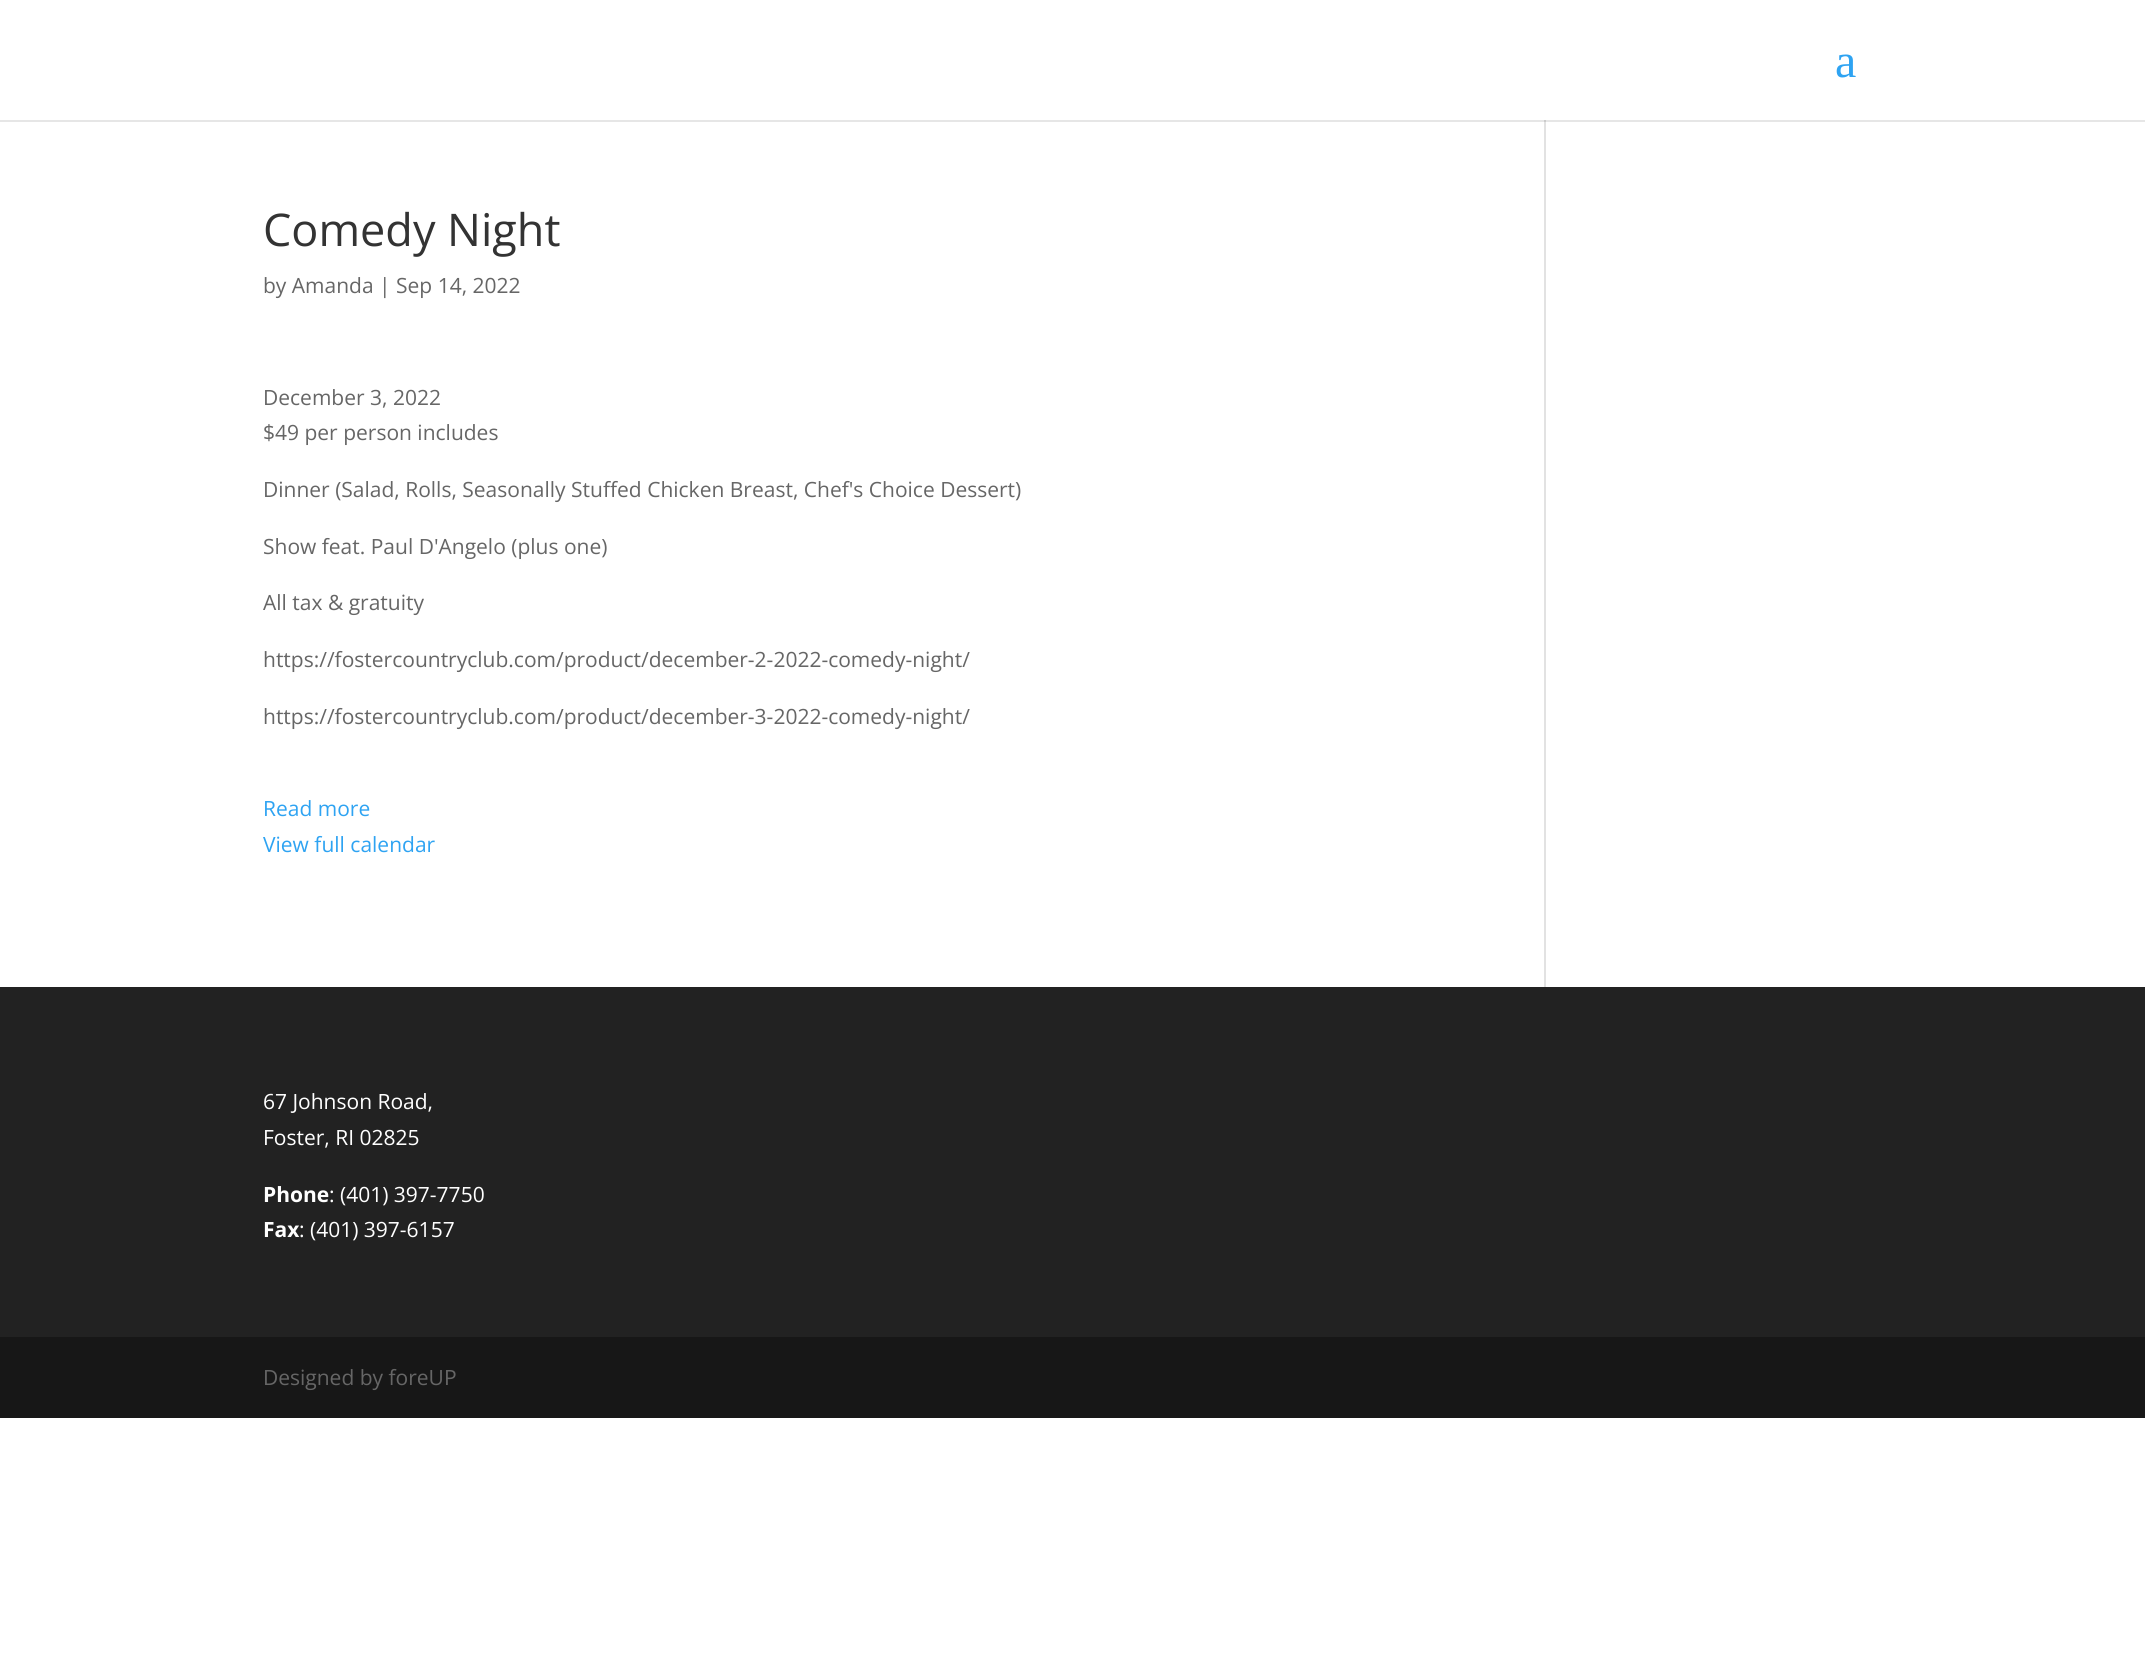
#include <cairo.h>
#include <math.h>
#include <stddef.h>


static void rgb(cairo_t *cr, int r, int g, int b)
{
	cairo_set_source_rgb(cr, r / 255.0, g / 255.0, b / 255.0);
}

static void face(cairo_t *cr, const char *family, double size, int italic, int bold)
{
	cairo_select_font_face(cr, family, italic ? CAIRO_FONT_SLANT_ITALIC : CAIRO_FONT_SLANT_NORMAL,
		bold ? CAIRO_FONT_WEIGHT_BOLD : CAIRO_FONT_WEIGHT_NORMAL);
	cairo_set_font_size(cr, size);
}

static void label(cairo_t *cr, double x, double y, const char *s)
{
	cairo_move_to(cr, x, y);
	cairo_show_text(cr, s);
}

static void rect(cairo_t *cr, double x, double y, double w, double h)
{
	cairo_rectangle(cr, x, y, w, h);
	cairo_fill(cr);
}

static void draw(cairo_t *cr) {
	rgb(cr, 255, 255, 255);
	cairo_paint(cr);
	rgb(cr, 230, 230, 230);
	rect(cr, 0, 120, 2145, 2);
	face(cr, "Liberation Serif", 48, 0, 0);
	rgb(cr, 46, 163, 242);
	label(cr, 1835, 77, "a");
	face(cr, "Open Sans", 45, 0, 0);
	rgb(cr, 51, 51, 51);
	label(cr, 263, 246, "Comedy Night");
	face(cr, "Open Sans", 21, 0, 0);
	rgb(cr, 102, 102, 102);
	label(cr, 263, 293, "by Amanda | Sep 14, 2022");
	label(cr, 263, 405, "December 3, 2022");
	label(cr, 263, 440, "$49 per person includes");
	label(cr, 263, 497, "Dinner (Salad, Rolls, Seasonally Stuffed Chicken Breast, Chef's Choice Dessert)");
	label(cr, 263, 554, "Show feat. Paul D'Angelo (plus one)");
	label(cr, 263, 610, "All tax & gratuity");
	label(cr, 263, 667, "https://fostercountryclub.com/product/december-2-2022-comedy-night/");
	label(cr, 263, 724, "https://fostercountryclub.com/product/december-3-2022-comedy-night/");
	rgb(cr, 46, 163, 242);
	label(cr, 263, 816, "Read more");
	label(cr, 263, 852, "View full calendar");
	rgb(cr, 226, 226, 226);
	rect(cr, 1544, 120, 2, 867);
	rgb(cr, 203, 203, 203);
	rect(cr, 1544, 120, 2, 2);
	rgb(cr, 34, 34, 34);
	rect(cr, 0, 987, 2145, 350);
	rgb(cr, 255, 255, 255);
	label(cr, 263, 1109, "67 Johnson Road,");
	label(cr, 263, 1145, "Foster, RI 02825");
	face(cr, "Open Sans", 21, 0, 1);
	label(cr, 263, 1202, "Phone");
	face(cr, "Open Sans", 21, 0, 0);
	label(cr, 329, 1202, ": (401) 397-7750");
	face(cr, "Open Sans", 21, 0, 1);
	label(cr, 263, 1237, "Fax");
	face(cr, "Open Sans", 21, 0, 0);
	label(cr, 299, 1237, ": (401) 397-6157");
	rgb(cr, 23, 23, 23);
	rect(cr, 0, 1337, 2145, 81);
	rgb(cr, 102, 102, 102);
	label(cr, 263, 1385, "Designed by foreUP");
}

int main(void) {
	cairo_surface_t *surface = cairo_image_surface_create(CAIRO_FORMAT_RGB24, 2145, 1673);
	cairo_t *cr = cairo_create(surface);
	cairo_font_options_t *options = cairo_font_options_create();
	cairo_font_options_set_hint_metrics(options, CAIRO_HINT_METRICS_OFF);
	cairo_font_options_set_hint_style(options, CAIRO_HINT_STYLE_NONE);
	cairo_set_font_options(cr, options);
	cairo_set_miter_limit(cr, 4);
	draw(cr);
	cairo_surface_write_to_png(surface, "render.png");
	cairo_font_options_destroy(options);
	cairo_destroy(cr);
	cairo_surface_destroy(surface);
	return 0;
}
